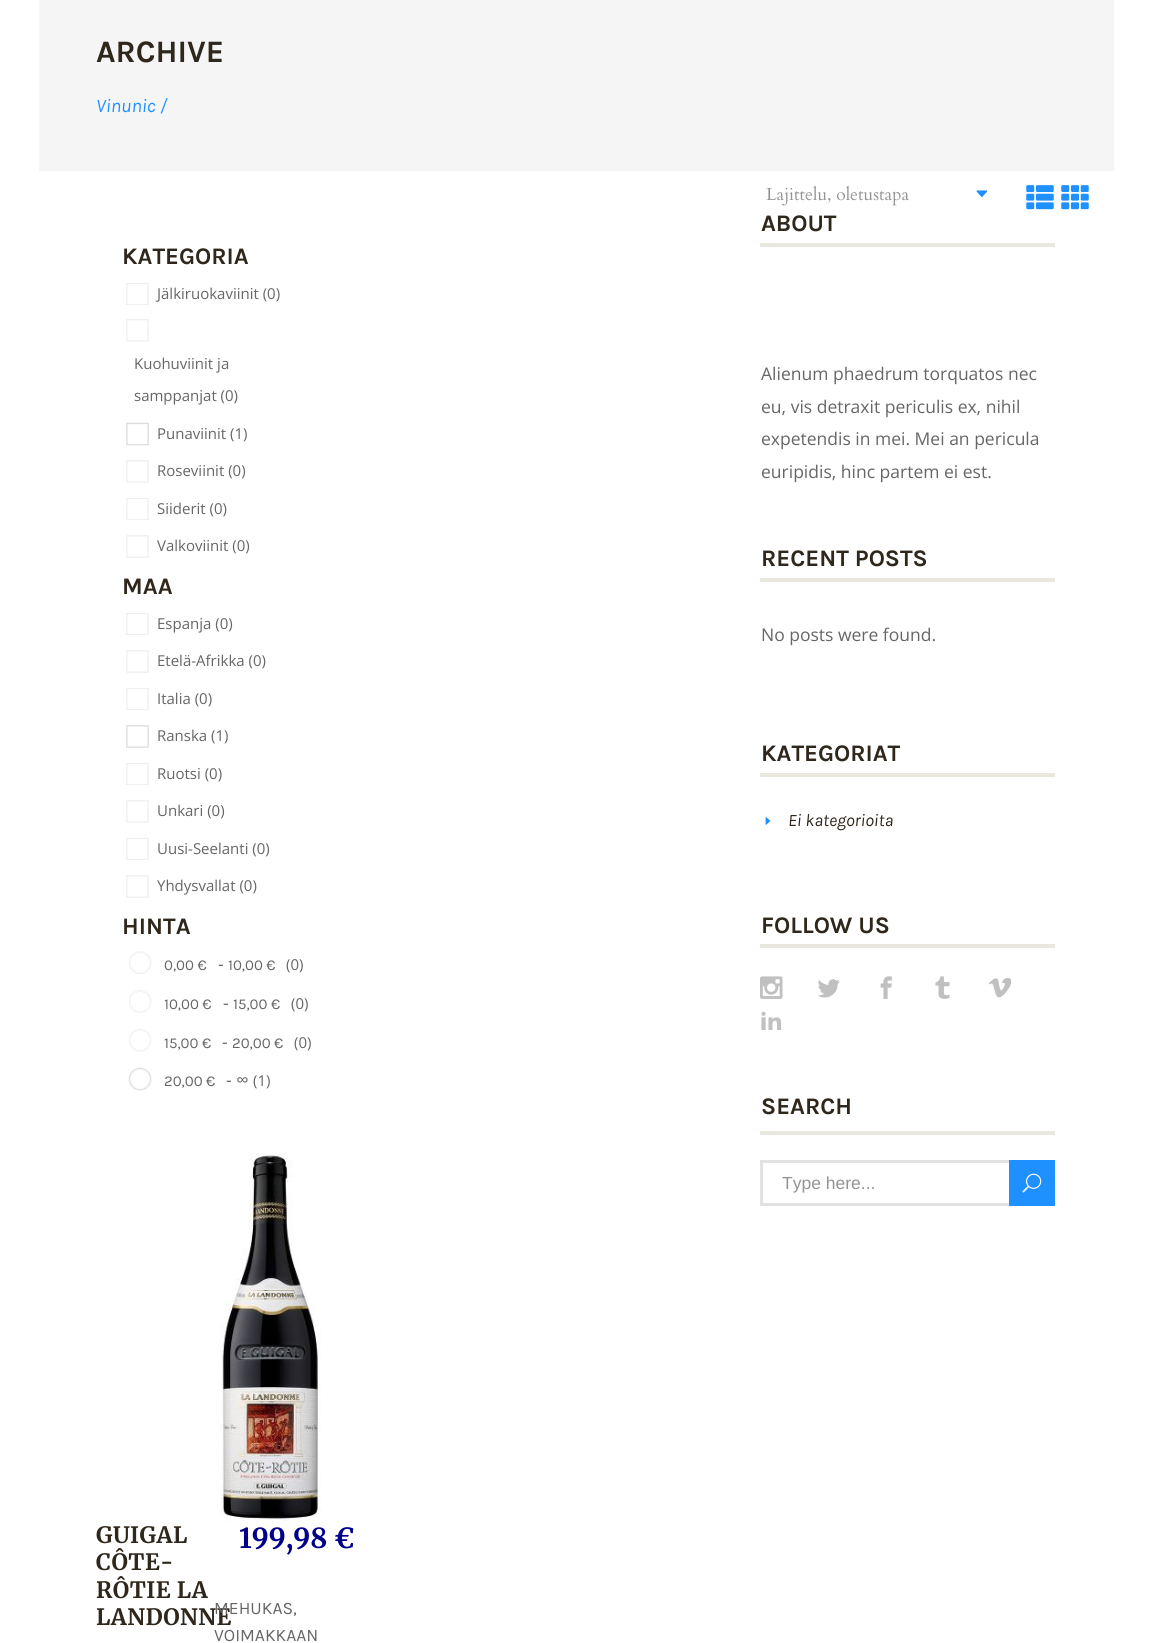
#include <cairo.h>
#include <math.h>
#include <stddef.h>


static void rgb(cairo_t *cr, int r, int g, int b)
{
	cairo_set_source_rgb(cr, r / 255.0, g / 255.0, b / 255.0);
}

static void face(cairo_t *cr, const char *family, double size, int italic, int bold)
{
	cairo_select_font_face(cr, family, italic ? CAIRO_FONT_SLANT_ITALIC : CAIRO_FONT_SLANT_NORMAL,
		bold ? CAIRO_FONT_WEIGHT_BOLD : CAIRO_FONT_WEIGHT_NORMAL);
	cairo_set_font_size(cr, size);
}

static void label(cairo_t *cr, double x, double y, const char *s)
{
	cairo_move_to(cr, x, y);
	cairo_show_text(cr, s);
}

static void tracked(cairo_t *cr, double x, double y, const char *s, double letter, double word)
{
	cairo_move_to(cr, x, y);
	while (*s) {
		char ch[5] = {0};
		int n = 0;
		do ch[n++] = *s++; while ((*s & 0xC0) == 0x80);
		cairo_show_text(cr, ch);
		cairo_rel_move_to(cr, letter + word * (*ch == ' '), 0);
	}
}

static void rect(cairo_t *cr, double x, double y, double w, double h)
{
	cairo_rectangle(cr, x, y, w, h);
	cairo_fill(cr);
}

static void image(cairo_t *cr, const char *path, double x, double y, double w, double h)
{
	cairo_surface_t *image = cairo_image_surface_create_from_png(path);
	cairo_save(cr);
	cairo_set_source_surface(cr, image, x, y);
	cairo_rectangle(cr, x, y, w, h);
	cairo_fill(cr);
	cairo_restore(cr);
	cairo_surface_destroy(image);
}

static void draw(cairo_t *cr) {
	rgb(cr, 255, 255, 255);
	cairo_paint(cr);
	rgb(cr, 245, 245, 245);
	rect(cr, 39, 0, 1075, 171);
	face(cr, "Karla", 31.25, 0, 1);
	rgb(cr, 48, 39, 28);
	label(cr, 96, 62, "ARCHIVE");
	face(cr, "Karla", 19, 1, 0);
	rgb(cr, 30, 144, 255);
	label(cr, 96, 112, "Vinunic /");
	face(cr, "Cardo", 17.5, 0, 0);
	rgb(cr, 148, 148, 148);
	label(cr, 766, 200, "Lajittelu, oletustapa");
	image(cr, "image0.png", 976, 190, 12, 8);
	image(cr, "image1.png", 1026, 185, 28, 25);
	image(cr, "image2.png", 1061, 185, 28, 25);
	face(cr, "Karla", 23.75, 0, 1);
	rgb(cr, 48, 39, 28);
	label(cr, 122, 264, "KATEGORIA");
	image(cr, "image3.png", 126, 283, 23, 22);
	face(cr, "Open Sans", 15, 0, 0);
	rgb(cr, 102, 102, 102);
	label(cr, 157, 299, "Jälkiruokaviinit (0)");
	image(cr, "image4.png", 126, 319, 23, 23);
	label(cr, 134, 369, "Kuohuviinit ja");
	label(cr, 134, 401, "samppanjat (0)");
	image(cr, "image5.png", 126, 422, 23, 24);
	label(cr, 157, 439, "Punaviinit (1)");
	image(cr, "image6.png", 126, 460, 23, 23);
	label(cr, 157, 476, "Roseviinit (0)");
	image(cr, "image3.png", 126, 498, 23, 22);
	label(cr, 157, 514, "Siiderit (0)");
	image(cr, "image6.png", 126, 535, 23, 23);
	label(cr, 157, 551, "Valkoviinit (0)");
	face(cr, "Karla", 23.75, 0, 1);
	rgb(cr, 48, 39, 28);
	label(cr, 122, 594, "MAA");
	image(cr, "image3.png", 126, 613, 23, 22);
	face(cr, "Open Sans", 15, 0, 0);
	rgb(cr, 102, 102, 102);
	label(cr, 157, 629, "Espanja (0)");
	image(cr, "image6.png", 126, 650, 23, 23);
	label(cr, 157, 666, "Etelä-Afrikka (0)");
	image(cr, "image3.png", 126, 688, 23, 22);
	label(cr, 157, 704, "Italia (0)");
	image(cr, "image7.png", 126, 725, 23, 23);
	label(cr, 157, 741, "Ranska (1)");
	image(cr, "image3.png", 126, 763, 23, 22);
	label(cr, 157, 779, "Ruotsi (0)");
	image(cr, "image6.png", 126, 800, 23, 23);
	label(cr, 157, 816, "Unkari (0)");
	image(cr, "image3.png", 126, 838, 23, 22);
	label(cr, 157, 854, "Uusi-Seelanti (0)");
	image(cr, "image6.png", 126, 875, 23, 23);
	label(cr, 157, 891, "Yhdysvallat (0)");
	face(cr, "Karla", 23.75, 0, 1);
	rgb(cr, 48, 39, 28);
	label(cr, 122, 934, "HINTA");
	image(cr, "image8.png", 129, 951, 23, 23);
	face(cr, "Karla", 15, 0, 0);
	rgb(cr, 102, 102, 102);
	label(cr, 164, 970, "0,00 €");
	face(cr, "Open Sans", 17.5, 0, 0);
	label(cr, 218, 970, "-");
	face(cr, "Karla", 15, 0, 0);
	label(cr, 228, 970, "10,00 €");
	face(cr, "Open Sans", 15, 0, 0);
	label(cr, 286, 970, "(0)");
	image(cr, "image9.png", 129, 990, 23, 23);
	face(cr, "Karla", 15, 0, 0);
	label(cr, 164, 1009, "10,00 €");
	face(cr, "Open Sans", 17.5, 0, 0);
	label(cr, 223, 1009, "-");
	face(cr, "Karla", 15, 0, 0);
	label(cr, 233, 1009, "15,00 €");
	face(cr, "Open Sans", 15, 0, 0);
	label(cr, 291, 1009, "(0)");
	image(cr, "image10.png", 128, 1029, 24, 23);
	face(cr, "Karla", 15, 0, 0);
	label(cr, 164, 1048, "15,00 €");
	face(cr, "Open Sans", 17.5, 0, 0);
	label(cr, 222, 1048, "-");
	face(cr, "Karla", 15, 0, 0);
	label(cr, 232, 1048, "20,00 €");
	face(cr, "Open Sans", 15, 0, 0);
	label(cr, 294, 1048, "(0)");
	image(cr, "image11.png", 128, 1067, 24, 24);
	face(cr, "Karla", 15, 0, 0);
	label(cr, 164, 1086, "20,00 €");
	face(cr, "Open Sans", 17.5, 0, 0);
	label(cr, 226, 1086, "- ∞");
	face(cr, "Open Sans", 15, 0, 0);
	label(cr, 253, 1086, "(1)");
	image(cr, "image12.png", 220, 1153, 102, 368);
	face(cr, "Merriweather", 22.5, 0, 1);
	rgb(cr, 48, 39, 28);
	tracked(cr, 96, 1543, "GUIGAL", 0.5, 0);
	tracked(cr, 96, 1570, "CÔTE-", 0.5, 0);
	tracked(cr, 96, 1598, "RÔTIE LA", 0.5, 0);
	tracked(cr, 96, 1625, "LANDONNE", 0.5, 0);
	face(cr, "Merriweather", 27.5, 0, 1);
	rgb(cr, 0, 0, 139);
	label(cr, 239, 1548, "199,98 €");
	face(cr, "Karla", 17.5, 0, 0);
	rgb(cr, 102, 102, 102);
	label(cr, 214, 1614, "MEHUKAS,");
	label(cr, 214, 1641, "VOIMAKKAAN");
	face(cr, "Karla", 23.75, 0, 1);
	rgb(cr, 48, 39, 28);
	label(cr, 761, 231, "ABOUT");
	rgb(cr, 234, 231, 222);
	rect(cr, 760, 243, 295, 4);
	face(cr, "Open Sans", 17.5, 0, 0);
	rgb(cr, 102, 102, 102);
	label(cr, 761, 380, "Alienum phaedrum torquatos nec");
	label(cr, 761, 413, "eu, vis detraxit periculis ex, nihil");
	label(cr, 761, 445, "expetendis in mei. Mei an pericula");
	label(cr, 761, 478, "euripidis, hinc partem ei est.");
	face(cr, "Karla", 23.75, 0, 1);
	rgb(cr, 48, 39, 28);
	label(cr, 761, 566, "RECENT POSTS");
	rgb(cr, 234, 231, 222);
	rect(cr, 760, 578, 295, 4);
	face(cr, "Open Sans", 17.5, 0, 0);
	rgb(cr, 102, 102, 102);
	label(cr, 761, 641, "No posts were found.");
	face(cr, "Karla", 23.75, 0, 1);
	rgb(cr, 48, 39, 28);
	label(cr, 761, 761, "KATEGORIAT");
	rgb(cr, 234, 231, 222);
	rect(cr, 760, 773, 295, 4);
	image(cr, "image13.png", 765, 817, 6, 8);
	face(cr, "Karla", 17.5, 1, 0);
	rgb(cr, 48, 39, 28);
	label(cr, 788, 826, "Ei kategorioita");
	face(cr, "Karla", 23.75, 0, 1);
	label(cr, 761, 933, "FOLLOW US");
	rgb(cr, 234, 231, 222);
	rect(cr, 760, 944, 295, 4);
	image(cr, "image14.png", 760, 976, 23, 23);
	image(cr, "image15.png", 818, 979, 22, 19);
	image(cr, "image16.png", 880, 976, 12, 23);
	image(cr, "image17.png", 935, 976, 15, 23);
	image(cr, "image18.png", 988, 978, 24, 20);
	image(cr, "image19.png", 761, 1011, 21, 19);
	rgb(cr, 48, 39, 28);
	label(cr, 761, 1114, "SEARCH");
	rgb(cr, 234, 231, 222);
	rect(cr, 760, 1131, 295, 4);
	cairo_rectangle(cr, 761.5, 1161.5, 292, 43);
	rgb(cr, 226, 226, 226);
	cairo_set_line_width(cr, 3);
	cairo_stroke(cr);
	face(cr, "Liberation Sans", 17.5, 0, 0);
	rgb(cr, 148, 148, 148);
	label(cr, 782, 1189, "Type here...");
	rgb(cr, 30, 144, 255);
	rect(cr, 1009, 1160, 46, 46);
	image(cr, "image20.png", 1022, 1173, 20, 20);
}

int main(void) {
	cairo_surface_t *surface = cairo_image_surface_create(CAIRO_FORMAT_RGB24, 1151, 1643);
	cairo_t *cr = cairo_create(surface);
	cairo_font_options_t *options = cairo_font_options_create();
	cairo_font_options_set_hint_metrics(options, CAIRO_HINT_METRICS_OFF);
	cairo_font_options_set_hint_style(options, CAIRO_HINT_STYLE_NONE);
	cairo_set_font_options(cr, options);
	cairo_set_miter_limit(cr, 4);
	draw(cr);
	cairo_surface_write_to_png(surface, "render.png");
	cairo_font_options_destroy(options);
	cairo_destroy(cr);
	cairo_surface_destroy(surface);
	return 0;
}
